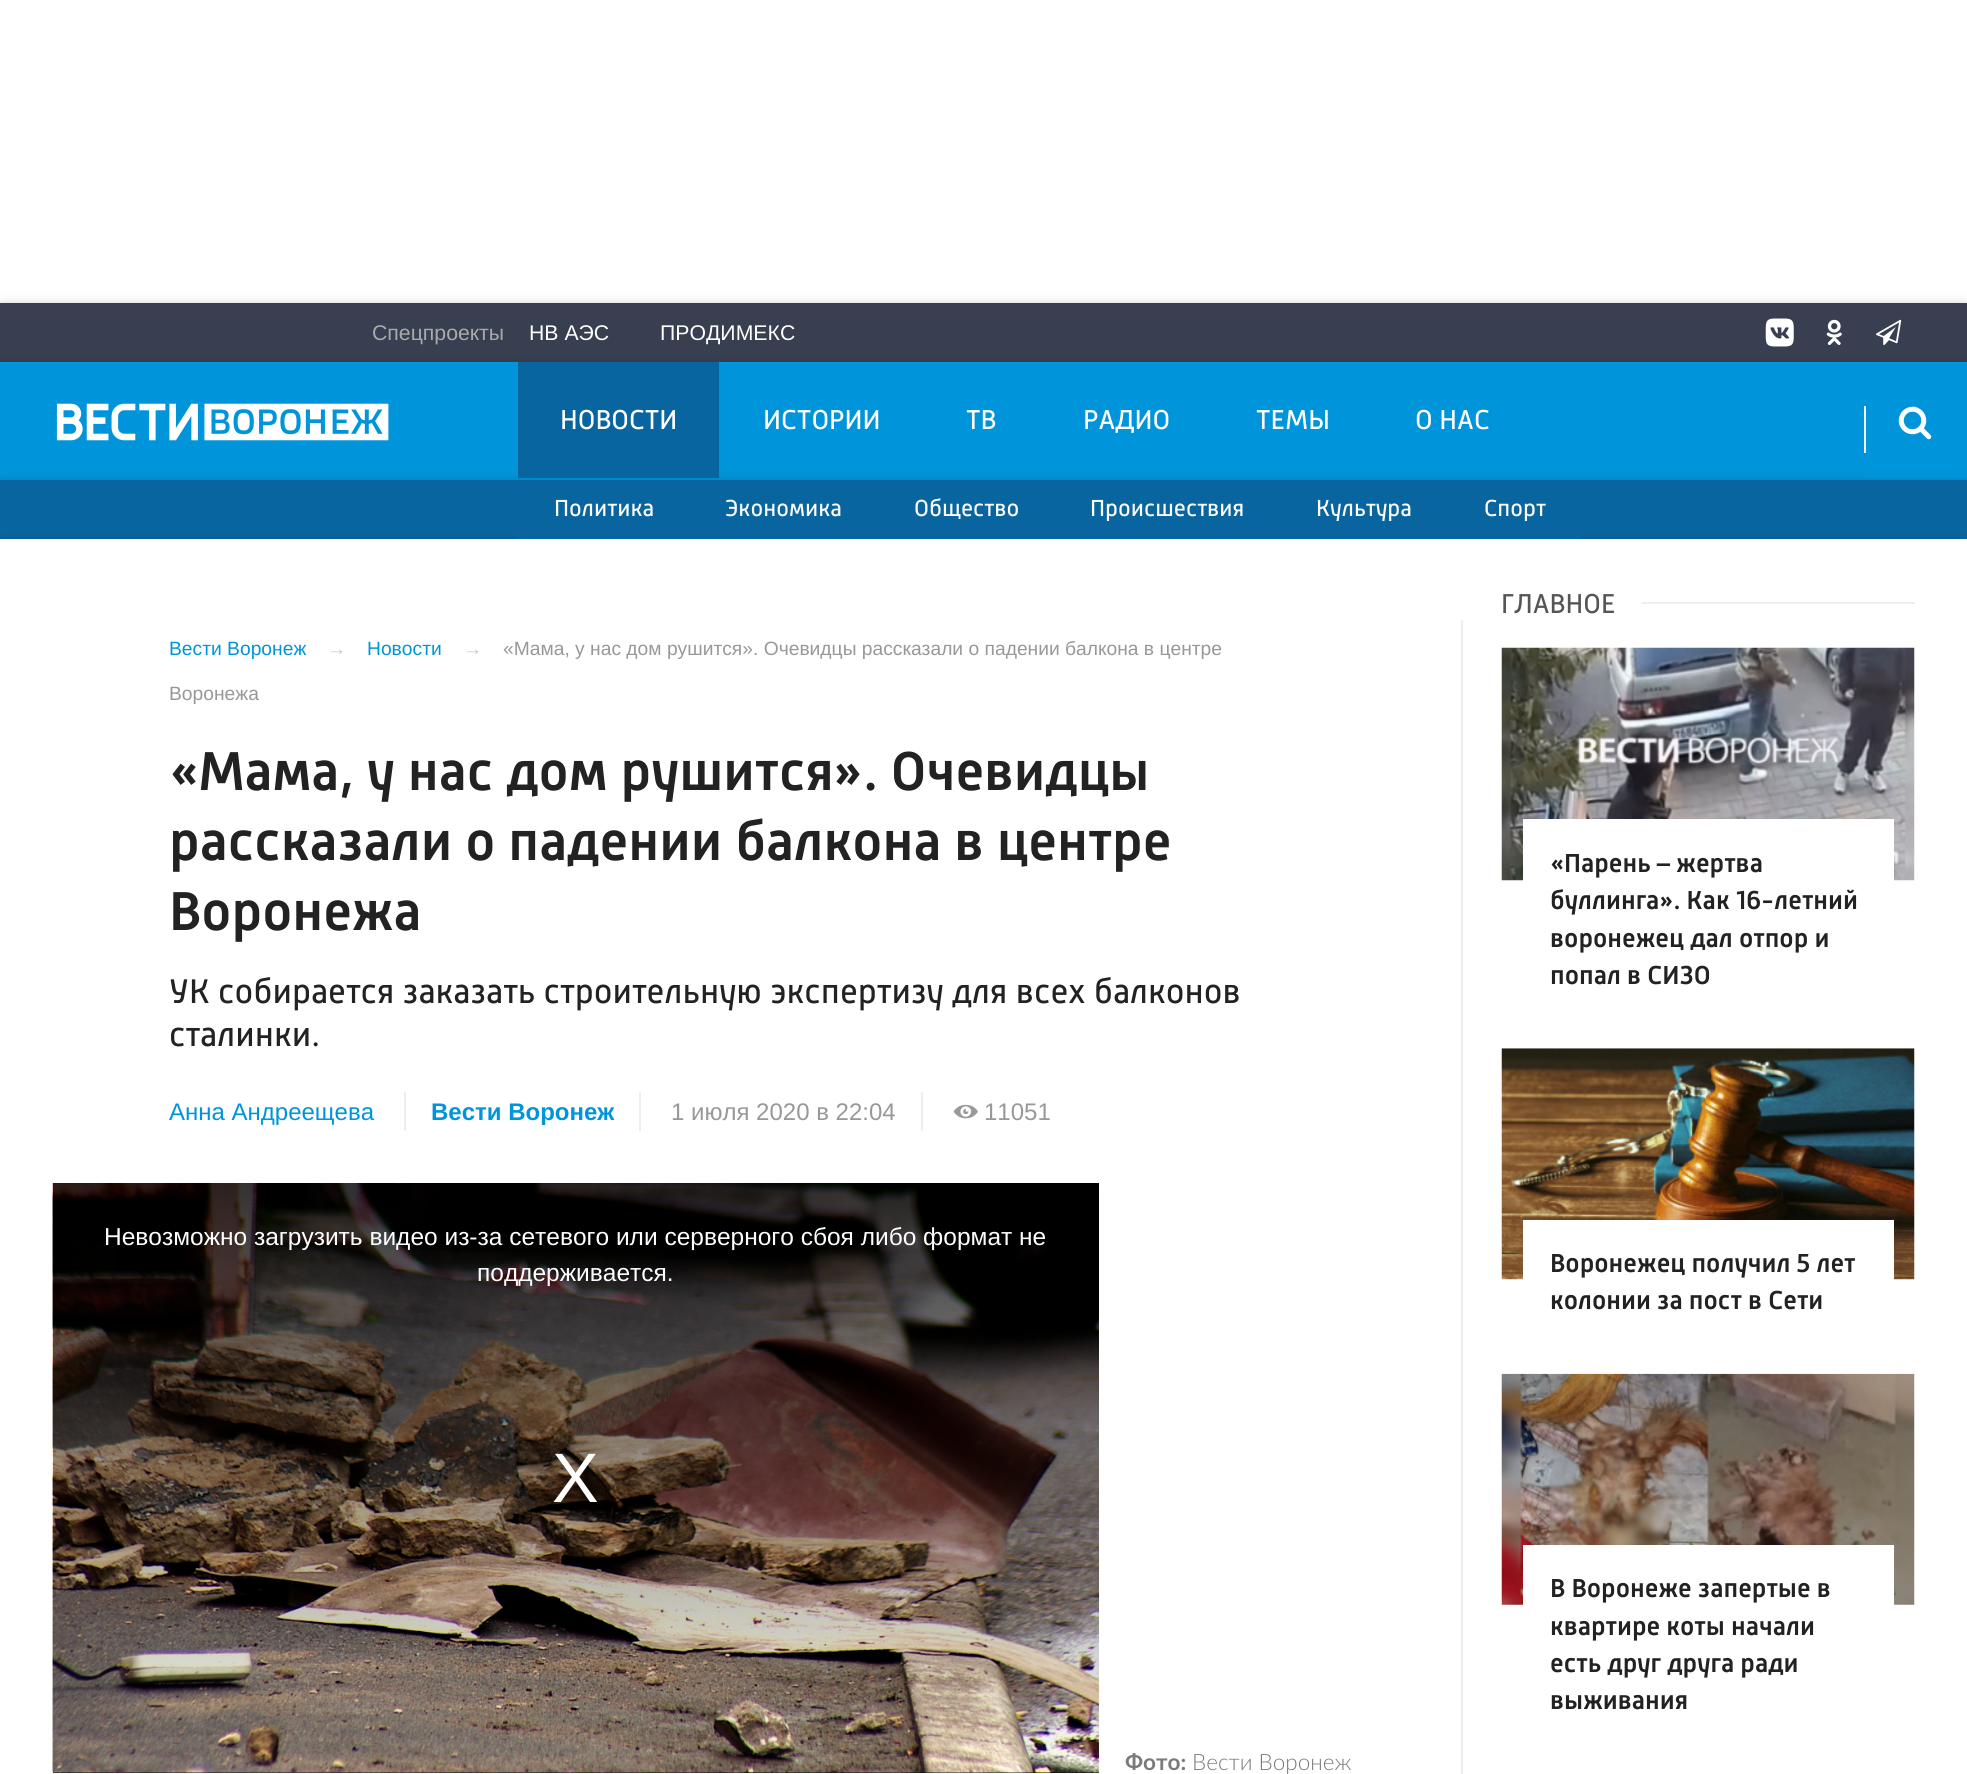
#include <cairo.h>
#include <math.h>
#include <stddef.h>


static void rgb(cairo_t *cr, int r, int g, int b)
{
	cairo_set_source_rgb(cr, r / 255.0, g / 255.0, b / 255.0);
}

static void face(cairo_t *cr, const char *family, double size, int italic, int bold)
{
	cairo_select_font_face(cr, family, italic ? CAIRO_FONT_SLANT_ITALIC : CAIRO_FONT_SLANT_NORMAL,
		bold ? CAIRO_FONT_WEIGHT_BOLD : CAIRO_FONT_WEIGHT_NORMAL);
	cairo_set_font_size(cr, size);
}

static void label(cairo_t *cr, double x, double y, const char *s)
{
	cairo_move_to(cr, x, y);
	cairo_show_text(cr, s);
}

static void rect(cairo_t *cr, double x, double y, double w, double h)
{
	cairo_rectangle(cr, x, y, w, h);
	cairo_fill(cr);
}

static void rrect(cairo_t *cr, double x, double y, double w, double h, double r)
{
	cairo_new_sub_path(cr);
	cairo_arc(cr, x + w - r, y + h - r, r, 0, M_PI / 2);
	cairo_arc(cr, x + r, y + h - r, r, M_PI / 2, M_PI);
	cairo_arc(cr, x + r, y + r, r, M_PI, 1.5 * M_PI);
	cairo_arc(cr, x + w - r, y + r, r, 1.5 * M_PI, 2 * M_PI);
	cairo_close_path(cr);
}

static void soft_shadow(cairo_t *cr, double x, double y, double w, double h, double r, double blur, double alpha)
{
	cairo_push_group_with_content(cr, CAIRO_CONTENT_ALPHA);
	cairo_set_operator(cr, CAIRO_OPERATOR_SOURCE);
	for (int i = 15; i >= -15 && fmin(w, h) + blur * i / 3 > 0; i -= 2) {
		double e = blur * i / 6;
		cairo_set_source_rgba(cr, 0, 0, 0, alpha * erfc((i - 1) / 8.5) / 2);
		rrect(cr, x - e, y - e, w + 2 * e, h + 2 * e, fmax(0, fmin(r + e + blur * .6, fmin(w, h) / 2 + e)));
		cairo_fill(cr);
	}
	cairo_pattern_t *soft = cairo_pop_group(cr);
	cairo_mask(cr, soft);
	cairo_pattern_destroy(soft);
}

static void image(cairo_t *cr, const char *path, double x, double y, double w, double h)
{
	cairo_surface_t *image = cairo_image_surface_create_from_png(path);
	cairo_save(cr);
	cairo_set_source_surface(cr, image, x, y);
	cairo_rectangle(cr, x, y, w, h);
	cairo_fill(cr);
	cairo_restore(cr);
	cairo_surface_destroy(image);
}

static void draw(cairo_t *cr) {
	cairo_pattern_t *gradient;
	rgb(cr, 255, 255, 255);
	cairo_paint(cr);
	rgb(cr, 0, 0, 0);
	soft_shadow(cr, 0, 306, 1967, 60, 0, 9, 0.12);
	soft_shadow(cr, 0, 306, 1967, 60, 0, 4.5, 0.16);
	rgb(cr, 55, 63, 81);
	rect(cr, 0, 303, 1967, 59);
	rgb(cr, 0, 0, 0);
	soft_shadow(cr, 0, 366, 1967, 117, 0, 9, 0.12);
	face(cr, "Liberation Sans", 21.25, 0, 0);
	rgb(cr, 170, 170, 170);
	label(cr, 372, 340, "Спецпроекты");
	rgb(cr, 255, 255, 255);
	label(cr, 529, 340, "НВ АЭС");
	label(cr, 660, 340, "ПРОДИМЕКС");
	image(cr, "image0.png", 1765, 318, 29, 29);
	image(cr, "image1.png", 1826, 319, 16, 26);
	image(cr, "image2.png", 1876, 319, 26, 26);
	rgb(cr, 0, 0, 0);
	soft_shadow(cr, 0, 366, 1967, 117, 0, 4.5, 0.16);
	rgb(cr, 0, 149, 218);
	rect(cr, 0, 362, 1967, 118);
	image(cr, "image3.png", 56, 403, 333, 38);
	rgb(cr, 0, 0, 0);
	soft_shadow(cr, 0, 483, 1967, 60, 0, 9, 0.12);
	soft_shadow(cr, 0, 483, 1967, 60, 0, 4.5, 0.16);
	rgb(cr, 9, 101, 160);
	rect(cr, 518, 362, 201, 116);
	face(cr, "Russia", 28, 0, 0);
	rgb(cr, 255, 255, 255);
	label(cr, 560, 429, "НОВОСТИ");
	rgb(cr, 9, 101, 160);
	rect(cr, 0, 480, 1967, 59);
	rgb(cr, 0, 0, 0);
	soft_shadow(cr, 0, 543, 1967, 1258, 0, 9, 0.12);
	soft_shadow(cr, 0, 543, 1967, 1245, 0, 4.5, 0.16);
	rgb(cr, 9, 101, 160);
	rect(cr, 518, 533, 1064, 6);
	face(cr, "Russia", 23.75, 0, 0);
	rgb(cr, 255, 255, 255);
	label(cr, 554, 516, "Политика");
	label(cr, 725, 516, "Экономика");
	label(cr, 914, 516, "Общество");
	label(cr, 1090, 516, "Происшествия");
	label(cr, 1316, 516, "Культура");
	label(cr, 1484, 516, "Спорт");
	face(cr, "Russia", 28, 0, 0);
	label(cr, 763, 429, "ИСТОРИИ");
	label(cr, 966, 429, "ТВ");
	label(cr, 1083, 429, "РАДИО");
	label(cr, 1256, 429, "ТЕМЫ");
	label(cr, 1415, 429, "О НАС");
	rgb(cr, 0, 149, 218);
	rect(cr, 1864, 471, 103, 7);
	rgb(cr, 238, 238, 238);
	rect(cr, 1864, 406, 2, 47);
	image(cr, "image4.png", 1898, 406, 34, 34);
	rgb(cr, 255, 255, 255);
	rect(cr, 0, 539, 1967, 1235);
	rgb(cr, 238, 238, 238);
	rect(cr, 1461, 620, 2, 1154);
	face(cr, "Liberation Sans", 19.25, 0, 0);
	rgb(cr, 152, 152, 152);
	label(cr, 503, 655, "«Мама, у нас дом рушится». Очевидцы рассказали о падении балкона в центре");
	label(cr, 169, 700, "Воронежа");
	rgb(cr, 0, 149, 218);
	label(cr, 169, 655, "Вести Воронеж");
	rgb(cr, 202, 202, 202);
	label(cr, 327, 655, "→");
	rgb(cr, 0, 149, 218);
	label(cr, 367, 655, "Новости");
	rgb(cr, 202, 202, 202);
	label(cr, 463, 655, "→");
	face(cr, "Russia Medium", 56, 0, 0);
	rgb(cr, 34, 34, 34);
	label(cr, 169, 790, "«Мама, у нас дом рушится». Очевидцы");
	label(cr, 169, 860, "рассказали о падении балкона в центре");
	label(cr, 169, 930, "Воронежа");
	face(cr, "Russia", 35, 0, 0);
	label(cr, 169, 1003, "УК собирается заказать строительную экспертизу для всех балконов");
	label(cr, 169, 1046, "сталинки.");
	face(cr, "Liberation Sans", 24, 0, 0);
	rgb(cr, 0, 149, 218);
	label(cr, 169, 1120, "Анна Андреещева");
	rgb(cr, 238, 238, 238);
	rect(cr, 404, 1092, 2, 39);
	face(cr, "Liberation Sans", 24, 0, 1);
	rgb(cr, 0, 149, 218);
	label(cr, 431, 1120, "Вести Воронеж");
	rgb(cr, 238, 238, 238);
	rect(cr, 639, 1092, 2, 39);
	face(cr, "Liberation Sans", 24, 0, 0);
	rgb(cr, 152, 152, 152);
	label(cr, 671, 1120, "1 июля 2020 в 22:04");
	rgb(cr, 238, 238, 238);
	rect(cr, 921, 1092, 2, 39);
	image(cr, "image5.png", 953, 1104, 25, 15);
	rgb(cr, 152, 152, 152);
	label(cr, 984, 1120, "11051");
	image(cr, "image6.png", 52, 1183, 1, 588);
	rgb(cr, 0, 0, 0);
	rect(cr, 53, 1772, 1046, 1);
	image(cr, "image7.png", 52, 1183, 1047, 590);
	gradient = cairo_pattern_create_linear(576, 1183, 576, 1773);
	cairo_pattern_add_color_stop_rgba(gradient, 0, 0, 0, 0, 0.8);
	cairo_pattern_add_color_stop_rgba(gradient, 1, 0, 0, 0, 0);
	cairo_set_source(cr, gradient);
	cairo_pattern_destroy(gradient);
	rect(cr, 53, 1183, 1046, 574);
	face(cr, "Liberation Sans", 24.5, 0, 0);
	rgb(cr, 255, 255, 255);
	label(cr, 104, 1245, "Невозможно загрузить видео из-за сетевого или серверного сбоя либо формат не");
	label(cr, 477, 1281, "поддерживается.");
	face(cr, "Liberation Sans", 70, 0, 0);
	label(cr, 552, 1502, "X");
	face(cr, "Lato", 22.5, 0, 1);
	rgb(cr, 123, 123, 123);
	label(cr, 1125, 1770, "Фото:");
	face(cr, "Lato Light", 22.5, 0, 0);
	label(cr, 1192, 1770, "Вести Воронеж");
	face(cr, "Russia", 28, 0, 0);
	rgb(cr, 85, 85, 85);
	label(cr, 1501, 613, "ГЛАВНОЕ");
	rgb(cr, 238, 238, 238);
	rect(cr, 1642, 602, 273, 2);
	image(cr, "image8.png", 1501, 647, 414, 234);
	rgb(cr, 255, 255, 255);
	rect(cr, 1523, 819, 371, 62);
	face(cr, "Russia Medium", 26.6, 0, 0);
	rgb(cr, 34, 34, 34);
	label(cr, 1550, 872, "«Парень – жертва");
	label(cr, 1550, 909, "буллинга». Как 16-летний");
	label(cr, 1550, 947, "воронежец дал отпор и");
	label(cr, 1550, 984, "попал в СИЗО");
	image(cr, "image9.png", 1501, 1048, 414, 232);
	rgb(cr, 255, 255, 255);
	rect(cr, 1523, 1220, 371, 60);
	rgb(cr, 34, 34, 34);
	label(cr, 1550, 1272, "Воронежец получил 5 лет");
	label(cr, 1550, 1309, "колонии за пост в Сети");
	image(cr, "image10.png", 1501, 1373, 414, 232);
	rgb(cr, 255, 255, 255);
	rect(cr, 1523, 1545, 371, 60);
	rgb(cr, 34, 34, 34);
	label(cr, 1550, 1597, "В Воронеже запертые в");
	label(cr, 1550, 1635, "квартире коты начали");
	label(cr, 1550, 1672, "есть друг друга ради");
	label(cr, 1550, 1709, "выживания");
}

int main(void) {
	cairo_surface_t *surface = cairo_image_surface_create(CAIRO_FORMAT_RGB24, 1967, 1774);
	cairo_t *cr = cairo_create(surface);
	cairo_font_options_t *options = cairo_font_options_create();
	cairo_font_options_set_hint_metrics(options, CAIRO_HINT_METRICS_OFF);
	cairo_font_options_set_hint_style(options, CAIRO_HINT_STYLE_NONE);
	cairo_set_font_options(cr, options);
	cairo_set_miter_limit(cr, 4);
	draw(cr);
	cairo_surface_write_to_png(surface, "render.png");
	cairo_font_options_destroy(options);
	cairo_destroy(cr);
	cairo_surface_destroy(surface);
	return 0;
}
